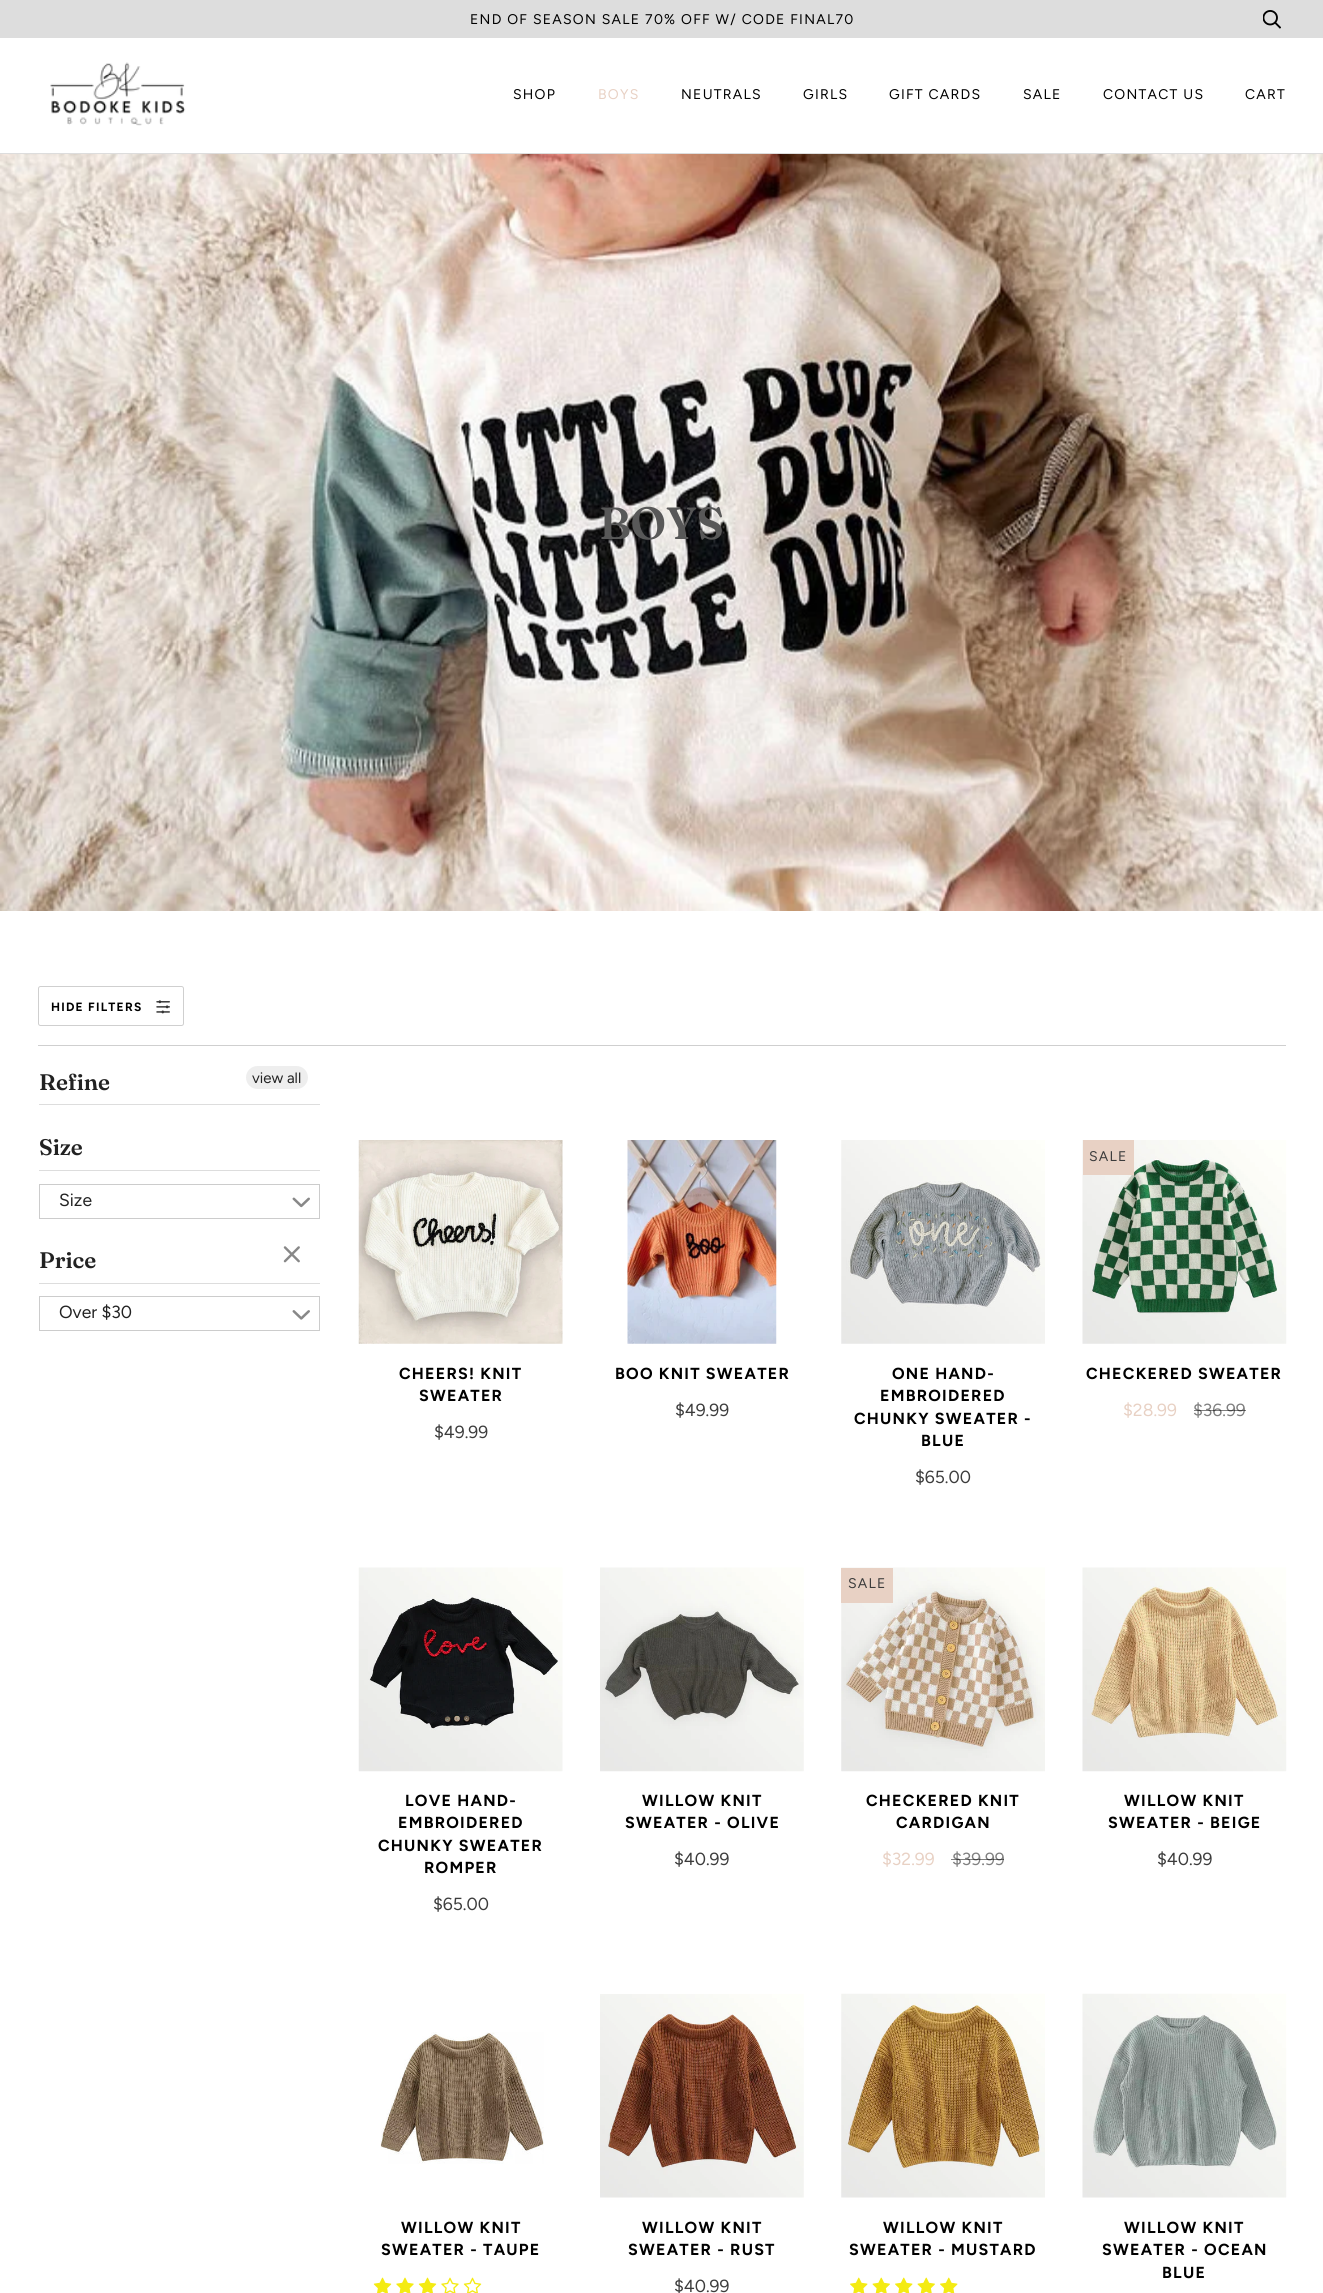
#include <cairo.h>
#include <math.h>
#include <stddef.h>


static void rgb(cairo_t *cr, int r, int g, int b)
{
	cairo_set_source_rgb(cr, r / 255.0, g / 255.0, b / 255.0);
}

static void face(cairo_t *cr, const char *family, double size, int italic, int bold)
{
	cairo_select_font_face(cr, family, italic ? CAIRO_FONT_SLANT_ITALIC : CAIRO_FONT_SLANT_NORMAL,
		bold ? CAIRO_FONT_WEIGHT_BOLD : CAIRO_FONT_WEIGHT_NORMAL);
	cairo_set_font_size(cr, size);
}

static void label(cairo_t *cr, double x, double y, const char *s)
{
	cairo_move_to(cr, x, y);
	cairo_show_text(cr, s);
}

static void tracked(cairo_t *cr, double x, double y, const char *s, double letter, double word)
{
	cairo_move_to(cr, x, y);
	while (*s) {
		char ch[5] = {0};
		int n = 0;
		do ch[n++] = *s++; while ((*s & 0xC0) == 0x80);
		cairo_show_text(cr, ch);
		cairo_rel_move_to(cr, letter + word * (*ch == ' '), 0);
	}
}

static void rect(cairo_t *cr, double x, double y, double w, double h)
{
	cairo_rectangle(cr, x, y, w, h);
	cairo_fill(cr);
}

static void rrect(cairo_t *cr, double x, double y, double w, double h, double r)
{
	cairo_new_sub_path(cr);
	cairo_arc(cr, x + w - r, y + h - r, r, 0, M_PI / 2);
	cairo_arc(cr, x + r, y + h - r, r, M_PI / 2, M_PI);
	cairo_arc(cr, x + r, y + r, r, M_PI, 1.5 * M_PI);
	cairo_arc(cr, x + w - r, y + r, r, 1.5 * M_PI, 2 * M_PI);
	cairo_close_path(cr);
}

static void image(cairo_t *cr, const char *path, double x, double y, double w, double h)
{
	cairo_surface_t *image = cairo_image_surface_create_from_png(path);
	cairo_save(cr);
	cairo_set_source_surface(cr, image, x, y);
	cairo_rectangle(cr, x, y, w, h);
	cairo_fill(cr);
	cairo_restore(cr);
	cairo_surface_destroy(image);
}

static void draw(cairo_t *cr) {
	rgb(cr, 255, 255, 255);
	cairo_paint(cr);
	rgb(cr, 221, 221, 221);
	rect(cr, 0, 0, 1323, 38);
	face(cr, "Figtree", 14, 0, 0);
	rgb(cr, 0, 0, 0);
	tracked(cr, 470, 24, "END OF SEASON SALE 70% OFF W/ CODE FINAL70", 1.25, 0);
	image(cr, "image0.png", 1263, 10, 18, 19);
	rgb(cr, 221, 221, 221);
	rect(cr, 0, 153, 1323, 1);
	image(cr, "image1.png", 50, 62, 136, 64);
	rgb(cr, 0, 0, 0);
	tracked(cr, 513, 99, "SHOP", 1.25, 0);
	rgb(cr, 232, 209, 196);
	tracked(cr, 598, 99, "BOYS", 1.25, 0);
	rgb(cr, 0, 0, 0);
	tracked(cr, 681, 99, "NEUTRALS", 1.25, 0);
	tracked(cr, 803, 99, "GIRLS", 1.25, 0);
	tracked(cr, 889, 99, "GIFT CARDS", 1.25, 0);
	tracked(cr, 1023, 99, "SALE", 1.25, 0);
	tracked(cr, 1103, 99, "CONTACT US", 1.25, 0);
	tracked(cr, 1245, 99, "CART", 1.25, 0);
	image(cr, "image2.png", 0, 154, 1323, 757);
	face(cr, "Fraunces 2 SemiBold", 45, 0, 0);
	rgb(cr, 88, 88, 88);
	label(cr, 599, 539, "BOYS");
	rrect(cr, 38.5, 986.5, 145, 39, 2);
	rgb(cr, 207, 207, 207);
	cairo_set_line_width(cr, 1);
	cairo_stroke(cr);
	face(cr, "Figtree", 12, 0, 1);
	rgb(cr, 0, 0, 0);
	tracked(cr, 51, 1011, "HIDE FILTERS", 1.25, 0);
	image(cr, "image3.png", 156, 1000, 14, 14);
	rgb(cr, 207, 207, 207);
	rect(cr, 38, 1045, 1248, 1);
	rgb(cr, 221, 221, 221);
	rect(cr, 39, 1104, 281, 1);
	face(cr, "Fraunces SemiBold", 22.5, 0, 0);
	rgb(cr, 34, 34, 34);
	label(cr, 39, 1090, "Refine");
	rgb(cr, 238, 238, 238);
	rrect(cr, 246, 1066, 62, 23, 11.5);
	cairo_fill(cr);
	face(cr, "Figtree", 15, 0, 0);
	rgb(cr, 34, 34, 34);
	label(cr, 252, 1083, "view all");
	rgb(cr, 221, 221, 221);
	rect(cr, 39, 1170, 281, 1);
	face(cr, "Fraunces SemiBold", 22.5, 0, 0);
	rgb(cr, 34, 34, 34);
	label(cr, 39, 1155, "Size");
	cairo_rectangle(cr, 39.5, 1184.5, 280, 34);
	rgb(cr, 204, 204, 204);
	cairo_stroke(cr);
	face(cr, "Figtree", 17.5, 0, 0);
	rgb(cr, 34, 34, 34);
	label(cr, 59, 1206, "Size");
	image(cr, "image4.png", 292, 1197, 18, 11);
	rgb(cr, 221, 221, 221);
	rect(cr, 39, 1283, 281, 1);
	face(cr, "Fraunces SemiBold", 22.5, 0, 0);
	rgb(cr, 34, 34, 34);
	label(cr, 39, 1268, "Price");
	image(cr, "image5.png", 283, 1246, 17, 17);
	cairo_rectangle(cr, 39.5, 1296.5, 280, 34);
	rgb(cr, 204, 204, 204);
	cairo_stroke(cr);
	face(cr, "Figtree", 17.5, 0, 0);
	rgb(cr, 34, 34, 34);
	label(cr, 59, 1318, "Over $30");
	image(cr, "image6.png", 292, 1310, 18, 10);
	image(cr, "image7.png", 358, 1140, 205, 204);
	face(cr, "Figtree", 16, 0, 1);
	rgb(cr, 0, 0, 0);
	tracked(cr, 399, 1379, "CHEERS! KNIT", 1.25, 0);
	tracked(cr, 419, 1401, "SWEATER", 1.25, 0);
	face(cr, "Figtree", 17.5, 0, 0);
	rgb(cr, 60, 60, 60);
	label(cr, 434, 1438, "$49.99");
	image(cr, "image8.png", 627, 1140, 150, 204);
	face(cr, "Figtree", 16, 0, 1);
	rgb(cr, 0, 0, 0);
	tracked(cr, 615, 1379, "BOO KNIT SWEATER", 1.25, 0);
	face(cr, "Figtree", 17.5, 0, 0);
	rgb(cr, 60, 60, 60);
	label(cr, 675, 1416, "$49.99");
	image(cr, "image9.png", 841, 1140, 204, 204);
	face(cr, "Figtree", 16, 0, 1);
	rgb(cr, 0, 0, 0);
	tracked(cr, 892, 1379, "ONE HAND-", 1.25, 0);
	tracked(cr, 880, 1401, "EMBROIDERED", 1.25, 0);
	tracked(cr, 854, 1424, "CHUNKY SWEATER -", 1.25, 0);
	tracked(cr, 921, 1446, "BLUE", 1.25, 0);
	face(cr, "Figtree", 17.5, 0, 0);
	rgb(cr, 60, 60, 60);
	label(cr, 915, 1483, "$65.00");
	image(cr, "image10.png", 1082, 1140, 205, 204);
	rgb(cr, 232, 209, 196);
	rect(cr, 1083, 1140, 51, 35);
	face(cr, "Figtree", 14, 0, 0);
	rgb(cr, 60, 60, 60);
	tracked(cr, 1089, 1161, "SALE", 1.25, 0);
	face(cr, "Figtree", 16, 0, 1);
	rgb(cr, 0, 0, 0);
	tracked(cr, 1086, 1379, "CHECKERED SWEATER", 1.25, 0);
	face(cr, "Figtree", 17.5, 0, 0);
	rgb(cr, 232, 209, 196);
	label(cr, 1123, 1416, "$28.99");
	rgb(cr, 128, 128, 128);
	label(cr, 1193, 1416, "$36.99");
	cairo_set_source_rgba(cr, 0, 0, 0, 0.5);
	rect(cr, 1194, 1410, 52, 1);
	image(cr, "image11.png", 358, 1567, 205, 205);
	face(cr, "Figtree", 16, 0, 1);
	rgb(cr, 0, 0, 0);
	tracked(cr, 405, 1806, "LOVE HAND-", 1.25, 0);
	tracked(cr, 398, 1828, "EMBROIDERED", 1.25, 0);
	tracked(cr, 378, 1851, "CHUNKY SWEATER", 1.25, 0);
	tracked(cr, 424, 1873, "ROMPER", 1.25, 0);
	face(cr, "Figtree", 17.5, 0, 0);
	rgb(cr, 60, 60, 60);
	label(cr, 433, 1910, "$65.00");
	image(cr, "image12.png", 600, 1567, 204, 205);
	face(cr, "Figtree", 16, 0, 1);
	rgb(cr, 0, 0, 0);
	tracked(cr, 642, 1806, "WILLOW KNIT", 1.25, 0);
	tracked(cr, 625, 1828, "SWEATER - OLIVE", 1.25, 0);
	face(cr, "Figtree", 17.5, 0, 0);
	rgb(cr, 60, 60, 60);
	label(cr, 674, 1865, "$40.99");
	image(cr, "image13.png", 841, 1567, 204, 205);
	rgb(cr, 232, 209, 196);
	rect(cr, 841, 1568, 52, 35);
	face(cr, "Figtree", 14, 0, 0);
	rgb(cr, 60, 60, 60);
	tracked(cr, 848, 1588, "SALE", 1.25, 0);
	face(cr, "Figtree", 16, 0, 1);
	rgb(cr, 0, 0, 0);
	tracked(cr, 866, 1806, "CHECKERED KNIT", 1.25, 0);
	tracked(cr, 896, 1828, "CARDIGAN", 1.25, 0);
	face(cr, "Figtree", 17.5, 0, 0);
	rgb(cr, 232, 209, 196);
	label(cr, 882, 1865, "$32.99");
	rgb(cr, 128, 128, 128);
	label(cr, 952, 1865, "$39.99");
	cairo_set_source_rgba(cr, 0, 0, 0, 0.5);
	rect(cr, 951, 1859, 53, 1);
	image(cr, "image14.png", 1082, 1567, 205, 205);
	face(cr, "Figtree", 16, 0, 1);
	rgb(cr, 0, 0, 0);
	tracked(cr, 1124, 1806, "WILLOW KNIT", 1.25, 0);
	tracked(cr, 1108, 1828, "SWEATER - BEIGE", 1.25, 0);
	face(cr, "Figtree", 17.5, 0, 0);
	rgb(cr, 60, 60, 60);
	label(cr, 1157, 1865, "$40.99");
	image(cr, "image15.png", 380, 2032, 164, 132);
	face(cr, "Figtree", 16, 0, 1);
	rgb(cr, 0, 0, 0);
	tracked(cr, 401, 2233, "WILLOW KNIT", 1.25, 0);
	tracked(cr, 381, 2255, "SWEATER - TAUPE", 1.25, 0);
	image(cr, "image16.png", 373, 2277, 19, 16);
	image(cr, "image17.png", 396, 2277, 18, 16);
	image(cr, "image16.png", 418, 2277, 19, 16);
	image(cr, "image18.png", 441, 2277, 18, 16);
	image(cr, "image19.png", 463, 2277, 19, 16);
	image(cr, "image20.png", 600, 1994, 204, 204);
	tracked(cr, 642, 2233, "WILLOW KNIT", 1.25, 0);
	tracked(cr, 628, 2255, "SWEATER - RUST", 1.25, 0);
	face(cr, "Figtree", 17.5, 0, 0);
	rgb(cr, 60, 60, 60);
	label(cr, 674, 2292, "$40.99");
	image(cr, "image21.png", 841, 1993, 204, 205);
	face(cr, "Figtree", 16, 0, 1);
	rgb(cr, 0, 0, 0);
	tracked(cr, 883, 2233, "WILLOW KNIT", 1.25, 0);
	tracked(cr, 849, 2255, "SWEATER - MUSTARD", 1.25, 0);
	image(cr, "image22.png", 850, 2277, 18, 16);
	image(cr, "image23.png", 872, 2277, 18, 16);
	image(cr, "image22.png", 895, 2277, 18, 16);
	image(cr, "image23.png", 917, 2277, 18, 16);
	image(cr, "image22.png", 940, 2277, 18, 16);
	image(cr, "image24.png", 1082, 1993, 205, 205);
	tracked(cr, 1124, 2233, "WILLOW KNIT", 1.25, 0);
	tracked(cr, 1102, 2255, "SWEATER - OCEAN", 1.25, 0);
	tracked(cr, 1162, 2278, "BLUE", 1.25, 0);
}

int main(void) {
	cairo_surface_t *surface = cairo_image_surface_create(CAIRO_FORMAT_RGB24, 1323, 2293);
	cairo_t *cr = cairo_create(surface);
	cairo_font_options_t *options = cairo_font_options_create();
	cairo_font_options_set_hint_metrics(options, CAIRO_HINT_METRICS_OFF);
	cairo_font_options_set_hint_style(options, CAIRO_HINT_STYLE_NONE);
	cairo_set_font_options(cr, options);
	cairo_set_miter_limit(cr, 4);
	draw(cr);
	cairo_surface_write_to_png(surface, "render.png");
	cairo_font_options_destroy(options);
	cairo_destroy(cr);
	cairo_surface_destroy(surface);
	return 0;
}
